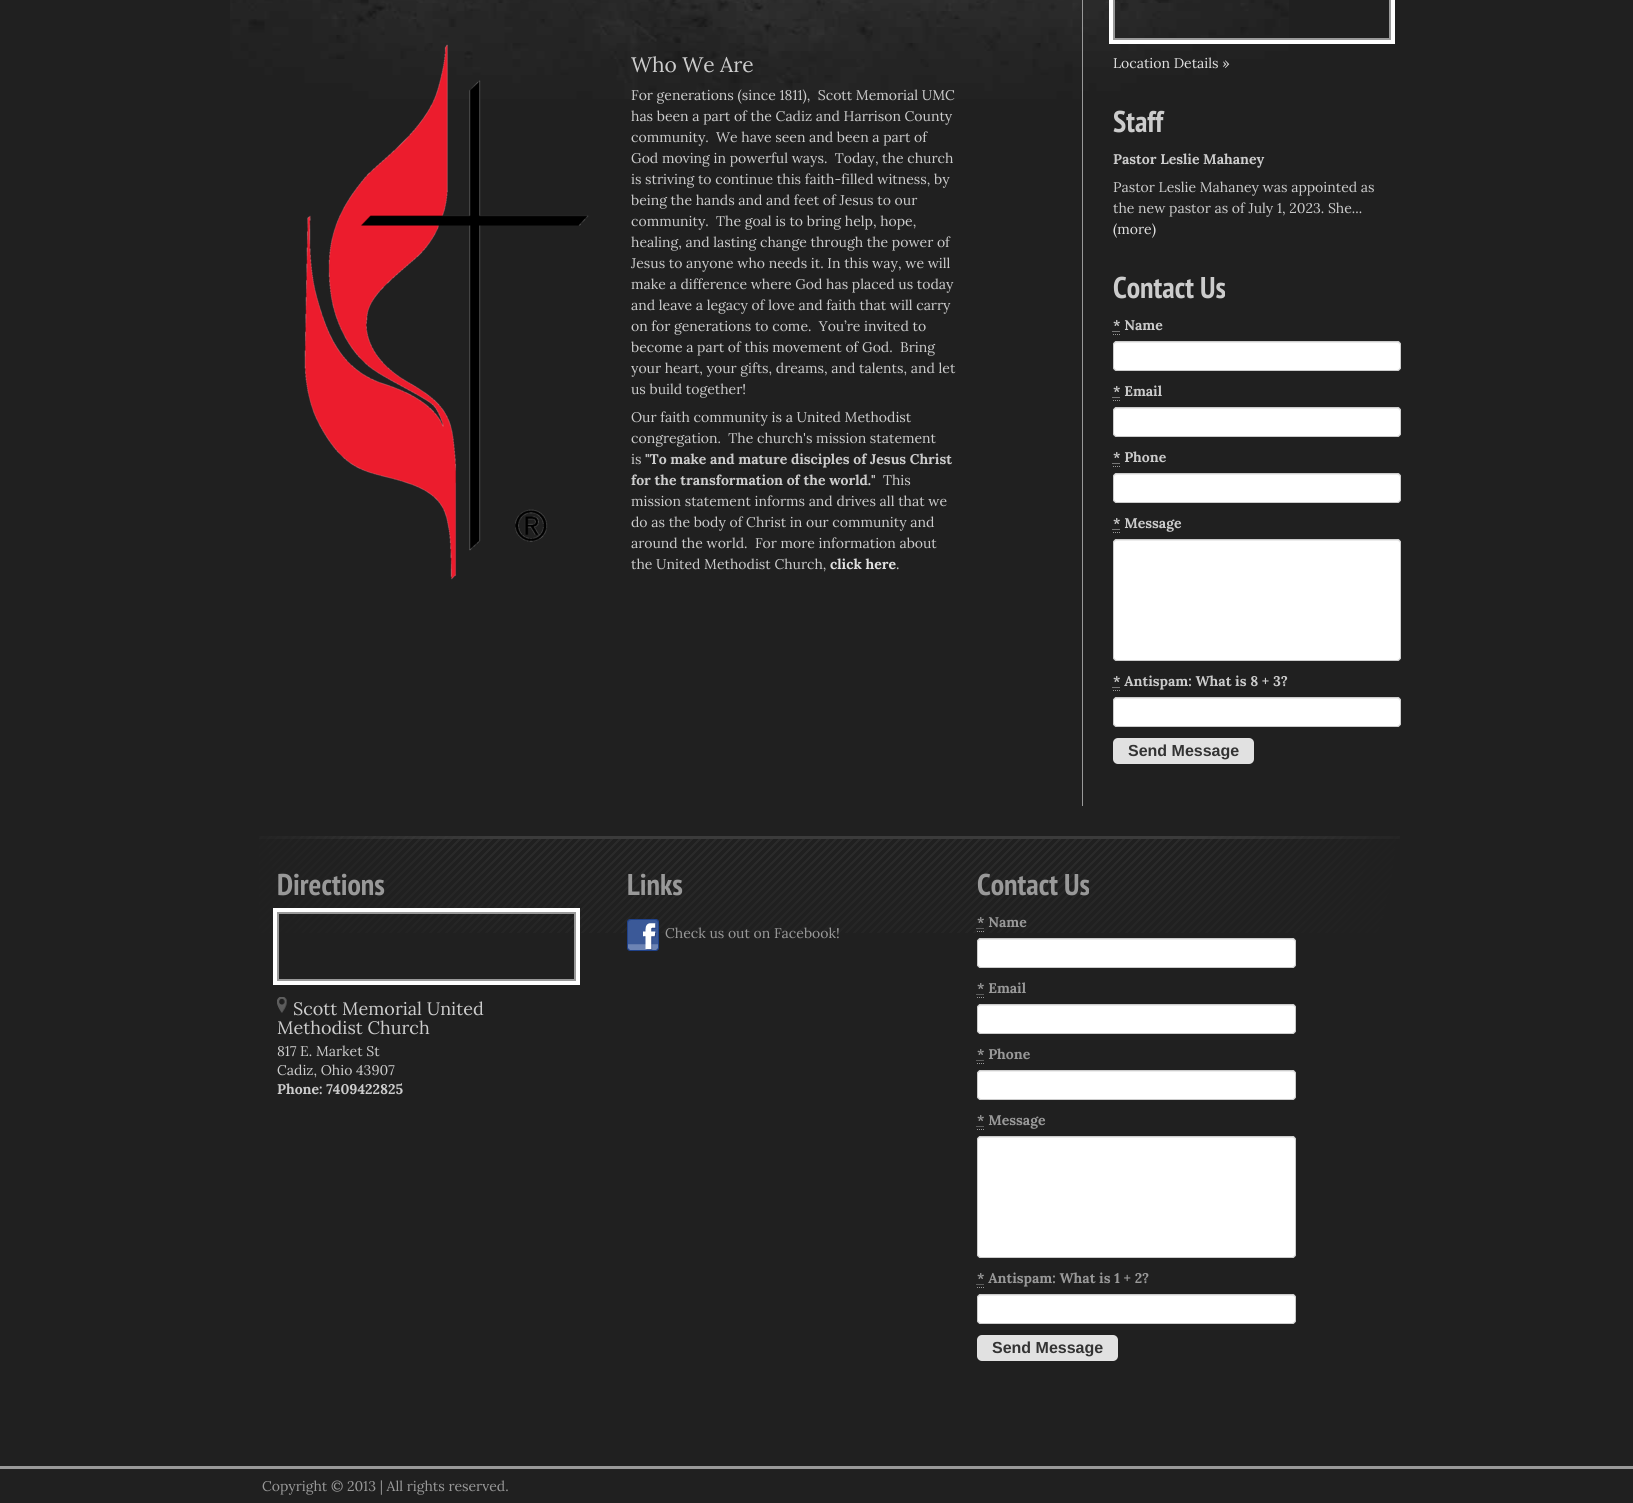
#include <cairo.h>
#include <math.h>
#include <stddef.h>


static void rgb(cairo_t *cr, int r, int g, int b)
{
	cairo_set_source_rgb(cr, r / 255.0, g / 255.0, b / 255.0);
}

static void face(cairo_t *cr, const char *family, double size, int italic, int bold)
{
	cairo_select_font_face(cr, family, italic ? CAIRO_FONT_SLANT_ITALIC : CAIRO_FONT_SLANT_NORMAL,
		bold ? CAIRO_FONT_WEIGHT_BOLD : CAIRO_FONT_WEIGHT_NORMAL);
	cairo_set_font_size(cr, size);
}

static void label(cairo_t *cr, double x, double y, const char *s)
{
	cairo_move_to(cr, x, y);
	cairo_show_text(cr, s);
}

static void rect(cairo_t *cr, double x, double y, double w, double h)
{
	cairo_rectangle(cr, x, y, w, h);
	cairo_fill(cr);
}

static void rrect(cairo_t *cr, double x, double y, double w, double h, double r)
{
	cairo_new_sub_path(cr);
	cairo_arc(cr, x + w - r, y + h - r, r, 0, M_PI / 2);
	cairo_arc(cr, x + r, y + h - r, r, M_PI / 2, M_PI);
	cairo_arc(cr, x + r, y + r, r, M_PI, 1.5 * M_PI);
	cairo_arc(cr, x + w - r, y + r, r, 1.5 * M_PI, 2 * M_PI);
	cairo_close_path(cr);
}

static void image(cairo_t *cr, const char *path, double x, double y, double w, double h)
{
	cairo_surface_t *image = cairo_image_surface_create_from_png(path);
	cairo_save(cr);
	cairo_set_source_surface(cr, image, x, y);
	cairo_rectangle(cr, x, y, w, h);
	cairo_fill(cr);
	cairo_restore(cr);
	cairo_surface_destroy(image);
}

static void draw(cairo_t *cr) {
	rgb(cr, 32, 32, 32);
	cairo_paint(cr);
	image(cr, "image0.png", 230, 0, 1059, 99);
	image(cr, "image1.png", 304, 44, 285, 536);
	face(cr, "Lora", 21, 0, 0);
	rgb(cr, 204, 204, 204);
	label(cr, 631, 72, "Who We Are");
	face(cr, "Lora", 14, 0, 0);
	label(cr, 631, 100, "For generations (since 1811),  Scott Memorial UMC");
	label(cr, 631, 121, "has been a part of the Cadiz and Harrison County");
	label(cr, 631, 142, "community.  We have seen and been a part of");
	label(cr, 631, 163, "God moving in powerful ways.  Today, the church");
	label(cr, 631, 184, "is striving to continue this faith-filled witness, by");
	label(cr, 631, 205, "being the hands and and feet of Jesus to our");
	label(cr, 631, 226, "community.  The goal is to bring help, hope,");
	label(cr, 631, 247, "healing, and lasting change through the power of");
	label(cr, 631, 268, "Jesus to anyone who needs it. In this way, we will");
	label(cr, 631, 289, "make a difference where God has placed us today");
	label(cr, 631, 310, "and leave a legacy of love and faith that will carry");
	label(cr, 631, 331, "on for generations to come.  You’re invited to");
	label(cr, 631, 352, "become a part of this movement of God.  Bring");
	label(cr, 631, 373, "your heart, your gifts, dreams, and talents, and let");
	label(cr, 631, 394, "us build together!");
	label(cr, 631, 422, "Our faith community is a United Methodist");
	label(cr, 631, 443, "congregation.  The church's mission statement");
	label(cr, 631, 464, "is");
	face(cr, "Lora", 14, 0, 1);
	label(cr, 645, 464, "\"To make and mature disciples of Jesus Christ");
	label(cr, 631, 485, "for the transformation of the world.\"");
	face(cr, "Lora", 14, 0, 0);
	label(cr, 883, 485, "This");
	label(cr, 631, 506, "mission statement informs and drives all that we");
	label(cr, 631, 527, "do as the body of Christ in our community and");
	label(cr, 631, 548, "around the world.  For more information about");
	label(cr, 631, 569, "the United Methodist Church,");
	face(cr, "Lora", 14, 0, 1);
	rgb(cr, 225, 225, 225);
	label(cr, 830, 569, "click here");
	face(cr, "Lora", 14, 0, 0);
	rgb(cr, 204, 204, 204);
	label(cr, 896, 569, ".");
	rgb(cr, 153, 153, 153);
	rect(cr, 1082, 0, 1, 806);
	cairo_rectangle(cr, 1114, -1, 276, 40);
	cairo_stroke(cr);
	cairo_rectangle(cr, 1111, -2, 282, 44);
	rgb(cr, 255, 255, 255);
	cairo_set_line_width(cr, 4);
	cairo_stroke(cr);
	rgb(cr, 225, 225, 225);
	label(cr, 1113, 68, "Location Details »");
	face(cr, "PT Sans Narrow", 30, 0, 1);
	rgb(cr, 204, 204, 204);
	label(cr, 1113, 132, "Staff");
	face(cr, "Lora", 14, 0, 1);
	label(cr, 1113, 164, "Pastor Leslie Mahaney");
	face(cr, "Lora", 14, 0, 0);
	label(cr, 1113, 192, "Pastor Leslie Mahaney was appointed as");
	label(cr, 1113, 213, "the new pastor as of July 1, 2023. She...");
	rgb(cr, 225, 225, 225);
	label(cr, 1113, 234, "(more)");
	face(cr, "PT Sans Narrow", 30, 0, 1);
	rgb(cr, 204, 204, 204);
	label(cr, 1113, 298, "Contact Us");
	face(cr, "Lora", 14, 0, 1);
	label(cr, 1113, 330, "* Name");
	cairo_new_path(cr);
	cairo_move_to(cr, 1113, 334.5);
	cairo_line_to(cr, 1114, 334.5);
	cairo_move_to(cr, 1115, 334.5);
	cairo_line_to(cr, 1116, 334.5);
	cairo_move_to(cr, 1117, 334.5);
	cairo_line_to(cr, 1118, 334.5);
	cairo_move_to(cr, 1119, 334.5);
	cairo_line_to(cr, 1120, 334.5);
	rgb(cr, 153, 153, 153);
	cairo_set_line_width(cr, 1);
	cairo_stroke(cr);
	cairo_new_path(cr);
	cairo_move_to(cr, 1112.5, 331.5);
	cairo_line_to(cr, 1120, 331.5);
	rgb(cr, 204, 204, 204);
	cairo_set_dash(cr, (double[]){1, 1}, 2, 0);
	cairo_stroke(cr);
	rgb(cr, 255, 255, 255);
	rrect(cr, 1113, 341, 288, 30, 4);
	cairo_fill(cr);
	rgb(cr, 236, 236, 236);
	cairo_new_path(cr);
	cairo_move_to(cr, 1117, 343);
	cairo_line_to(cr, 1397, 343);
	cairo_curve_to(cr, 1399, 343, 1400, 344, 1400, 346);
	cairo_curve_to(cr, 1400, 344, 1399, 342, 1397, 342);
	cairo_line_to(cr, 1117, 342);
	cairo_curve_to(cr, 1115, 342, 1114, 344, 1114, 346);
	cairo_curve_to(cr, 1114, 344, 1115, 343, 1117, 343);
	cairo_close_path(cr);
	cairo_fill(cr);
	rrect(cr, 1113.5, 341.5, 287, 29, 3.5);
	rgb(cr, 204, 204, 204);
	cairo_set_dash(cr, NULL, 0, 0);
	cairo_stroke(cr);
	label(cr, 1113, 396, "* Email");
	cairo_new_path(cr);
	cairo_move_to(cr, 1113, 400.5);
	cairo_line_to(cr, 1114, 400.5);
	cairo_move_to(cr, 1115, 400.5);
	cairo_line_to(cr, 1116, 400.5);
	cairo_move_to(cr, 1117, 400.5);
	cairo_line_to(cr, 1118, 400.5);
	cairo_move_to(cr, 1119, 400.5);
	cairo_line_to(cr, 1120, 400.5);
	rgb(cr, 153, 153, 153);
	cairo_stroke(cr);
	cairo_new_path(cr);
	cairo_move_to(cr, 1112.5, 397.5);
	cairo_line_to(cr, 1120, 397.5);
	rgb(cr, 204, 204, 204);
	cairo_set_dash(cr, (double[]){1, 1}, 2, 0);
	cairo_stroke(cr);
	rgb(cr, 255, 255, 255);
	rrect(cr, 1113, 407, 288, 30, 4);
	cairo_fill(cr);
	rgb(cr, 236, 236, 236);
	cairo_new_path(cr);
	cairo_move_to(cr, 1117, 409);
	cairo_line_to(cr, 1397, 409);
	cairo_curve_to(cr, 1399, 409, 1400, 410, 1400, 412);
	cairo_curve_to(cr, 1400, 410, 1399, 408, 1397, 408);
	cairo_line_to(cr, 1117, 408);
	cairo_curve_to(cr, 1115, 408, 1114, 410, 1114, 412);
	cairo_curve_to(cr, 1114, 410, 1115, 409, 1117, 409);
	cairo_close_path(cr);
	cairo_fill(cr);
	rrect(cr, 1113.5, 407.5, 287, 29, 3.5);
	rgb(cr, 204, 204, 204);
	cairo_set_dash(cr, NULL, 0, 0);
	cairo_stroke(cr);
	label(cr, 1113, 462, "* Phone");
	cairo_new_path(cr);
	cairo_move_to(cr, 1113, 466.5);
	cairo_line_to(cr, 1114, 466.5);
	cairo_move_to(cr, 1115, 466.5);
	cairo_line_to(cr, 1116, 466.5);
	cairo_move_to(cr, 1117, 466.5);
	cairo_line_to(cr, 1118, 466.5);
	cairo_move_to(cr, 1119, 466.5);
	cairo_line_to(cr, 1120, 466.5);
	rgb(cr, 153, 153, 153);
	cairo_stroke(cr);
	cairo_new_path(cr);
	cairo_move_to(cr, 1112.5, 463.5);
	cairo_line_to(cr, 1120, 463.5);
	rgb(cr, 204, 204, 204);
	cairo_set_dash(cr, (double[]){1, 1}, 2, 0);
	cairo_stroke(cr);
	rgb(cr, 255, 255, 255);
	rrect(cr, 1113, 473, 288, 30, 4);
	cairo_fill(cr);
	rgb(cr, 236, 236, 236);
	cairo_new_path(cr);
	cairo_move_to(cr, 1117, 475);
	cairo_line_to(cr, 1397, 475);
	cairo_curve_to(cr, 1399, 475, 1400, 476, 1400, 478);
	cairo_curve_to(cr, 1400, 476, 1399, 474, 1397, 474);
	cairo_line_to(cr, 1117, 474);
	cairo_curve_to(cr, 1115, 474, 1114, 476, 1114, 478);
	cairo_curve_to(cr, 1114, 476, 1115, 475, 1117, 475);
	cairo_close_path(cr);
	cairo_fill(cr);
	rrect(cr, 1113.5, 473.5, 287, 29, 3.5);
	rgb(cr, 204, 204, 204);
	cairo_set_dash(cr, NULL, 0, 0);
	cairo_stroke(cr);
	cairo_new_path(cr);
	cairo_move_to(cr, 1112.5, 529.5);
	cairo_line_to(cr, 1120, 529.5);
	cairo_set_dash(cr, (double[]){1, 1}, 2, 0);
	cairo_stroke(cr);
	label(cr, 1113, 528, "* Message");
	cairo_new_path(cr);
	cairo_move_to(cr, 1113, 532.5);
	cairo_line_to(cr, 1114, 532.5);
	cairo_move_to(cr, 1115, 532.5);
	cairo_line_to(cr, 1116, 532.5);
	cairo_move_to(cr, 1117, 532.5);
	cairo_line_to(cr, 1118, 532.5);
	cairo_move_to(cr, 1119, 532.5);
	cairo_line_to(cr, 1120, 532.5);
	rgb(cr, 153, 153, 153);
	cairo_set_dash(cr, NULL, 0, 0);
	cairo_stroke(cr);
	rgb(cr, 255, 255, 255);
	rrect(cr, 1113, 539, 288, 122, 4);
	cairo_fill(cr);
	rgb(cr, 236, 236, 236);
	cairo_new_path(cr);
	cairo_move_to(cr, 1117, 541);
	cairo_line_to(cr, 1397, 541);
	cairo_curve_to(cr, 1399, 541, 1400, 542, 1400, 544);
	cairo_curve_to(cr, 1400, 542, 1399, 540, 1397, 540);
	cairo_line_to(cr, 1117, 540);
	cairo_curve_to(cr, 1115, 540, 1114, 542, 1114, 544);
	cairo_curve_to(cr, 1114, 542, 1115, 541, 1117, 541);
	cairo_close_path(cr);
	cairo_fill(cr);
	rrect(cr, 1113.5, 539.5, 287, 121, 3.5);
	rgb(cr, 204, 204, 204);
	cairo_stroke(cr);
	cairo_new_path(cr);
	cairo_move_to(cr, 1112.5, 687.5);
	cairo_line_to(cr, 1120, 687.5);
	cairo_set_dash(cr, (double[]){1, 1}, 2, 0);
	cairo_stroke(cr);
	label(cr, 1113, 686, "* Antispam: What is 8 + 3?");
	cairo_new_path(cr);
	cairo_move_to(cr, 1113, 690.5);
	cairo_line_to(cr, 1114, 690.5);
	cairo_move_to(cr, 1115, 690.5);
	cairo_line_to(cr, 1116, 690.5);
	cairo_move_to(cr, 1117, 690.5);
	cairo_line_to(cr, 1118, 690.5);
	cairo_move_to(cr, 1119, 690.5);
	cairo_line_to(cr, 1120, 690.5);
	rgb(cr, 153, 153, 153);
	cairo_set_dash(cr, NULL, 0, 0);
	cairo_stroke(cr);
	rgb(cr, 255, 255, 255);
	rrect(cr, 1113, 697, 288, 30, 4);
	cairo_fill(cr);
	rgb(cr, 236, 236, 236);
	cairo_new_path(cr);
	cairo_move_to(cr, 1117, 699);
	cairo_line_to(cr, 1397, 699);
	cairo_curve_to(cr, 1399, 699, 1400, 700, 1400, 702);
	cairo_curve_to(cr, 1400, 700, 1399, 698, 1397, 698);
	cairo_line_to(cr, 1117, 698);
	cairo_curve_to(cr, 1115, 698, 1114, 700, 1114, 702);
	cairo_curve_to(cr, 1114, 700, 1115, 699, 1117, 699);
	cairo_close_path(cr);
	cairo_fill(cr);
	rrect(cr, 1113.5, 697.5, 287, 29, 3.5);
	rgb(cr, 204, 204, 204);
	cairo_stroke(cr);
	rgb(cr, 225, 225, 225);
	rrect(cr, 1113, 738, 141, 26, 5);
	cairo_fill(cr);
	face(cr, "Liberation Sans", 16, 0, 1);
	rgb(cr, 51, 51, 51);
	label(cr, 1128, 756, "Send Message");
	image(cr, "image2.png", 259, 836, 1141, 97);
	face(cr, "PT Sans Narrow", 30, 0, 1);
	rgb(cr, 153, 153, 153);
	label(cr, 277, 895, "Directions");
	cairo_rectangle(cr, 278, 913, 297, 67);
	cairo_set_line_width(cr, 2);
	cairo_stroke(cr);
	cairo_rectangle(cr, 275, 910, 303, 73);
	rgb(cr, 255, 255, 255);
	cairo_set_line_width(cr, 4);
	cairo_stroke(cr);
	image(cr, "image3.png", 277, 997, 10, 16);
	face(cr, "Lora", 18, 0, 0);
	rgb(cr, 204, 204, 204);
	label(cr, 293, 1015, "Scott Memorial United");
	label(cr, 277, 1034, "Methodist Church");
	face(cr, "Lora", 14, 0, 0);
	label(cr, 277, 1056, "817 E. Market St");
	label(cr, 277, 1075, "Cadiz, Ohio 43907");
	face(cr, "Lora", 14, 0, 1);
	label(cr, 277, 1094, "Phone: 7409422825");
	face(cr, "PT Sans Narrow", 30, 0, 1);
	rgb(cr, 153, 153, 153);
	label(cr, 627, 895, "Links");
	image(cr, "image4.png", 627, 919, 32, 32);
	face(cr, "Lora", 14, 0, 0);
	label(cr, 665, 938, "Check us out on Facebook!");
	face(cr, "PT Sans Narrow", 30, 0, 1);
	label(cr, 977, 895, "Contact Us");
	face(cr, "Lora", 14, 0, 1);
	label(cr, 977, 927, "* Name");
	cairo_new_path(cr);
	cairo_move_to(cr, 977, 931.5);
	cairo_line_to(cr, 978, 931.5);
	cairo_move_to(cr, 979, 931.5);
	cairo_line_to(cr, 980, 931.5);
	cairo_move_to(cr, 981, 931.5);
	cairo_line_to(cr, 982, 931.5);
	cairo_move_to(cr, 983, 931.5);
	cairo_line_to(cr, 984, 931.5);
	cairo_set_line_width(cr, 1);
	cairo_stroke(cr);
	cairo_new_path(cr);
	cairo_move_to(cr, 976.5, 928.5);
	cairo_line_to(cr, 984, 928.5);
	cairo_set_dash(cr, (double[]){1, 1}, 2, 0);
	cairo_stroke(cr);
	rgb(cr, 255, 255, 255);
	rrect(cr, 977, 938, 319, 30, 4);
	cairo_fill(cr);
	rgb(cr, 236, 236, 236);
	cairo_new_path(cr);
	cairo_move_to(cr, 981, 940);
	cairo_line_to(cr, 1292, 940);
	cairo_curve_to(cr, 1294, 940, 1295, 941, 1295, 943);
	cairo_line_to(cr, 1294, 940);
	cairo_line_to(cr, 1293, 939);
	cairo_line_to(cr, 981, 939);
	cairo_curve_to(cr, 979, 939, 978, 941, 978, 943);
	cairo_curve_to(cr, 978, 941, 979, 940, 981, 940);
	cairo_close_path(cr);
	cairo_fill(cr);
	rrect(cr, 977.5, 938.5, 318, 29, 3.5);
	rgb(cr, 204, 204, 204);
	cairo_set_dash(cr, NULL, 0, 0);
	cairo_stroke(cr);
	rgb(cr, 153, 153, 153);
	label(cr, 977, 993, "* Email");
	cairo_new_path(cr);
	cairo_move_to(cr, 977, 997.5);
	cairo_line_to(cr, 978, 997.5);
	cairo_move_to(cr, 979, 997.5);
	cairo_line_to(cr, 980, 997.5);
	cairo_move_to(cr, 981, 997.5);
	cairo_line_to(cr, 982, 997.5);
	cairo_move_to(cr, 983, 997.5);
	cairo_line_to(cr, 984, 997.5);
	cairo_stroke(cr);
	cairo_new_path(cr);
	cairo_move_to(cr, 976.5, 994.5);
	cairo_line_to(cr, 984, 994.5);
	cairo_set_dash(cr, (double[]){1, 1}, 2, 0);
	cairo_stroke(cr);
	rgb(cr, 255, 255, 255);
	rrect(cr, 977, 1004, 319, 30, 4);
	cairo_fill(cr);
	rgb(cr, 236, 236, 236);
	cairo_new_path(cr);
	cairo_move_to(cr, 981, 1006);
	cairo_line_to(cr, 1292, 1006);
	cairo_curve_to(cr, 1294, 1006, 1295, 1007, 1295, 1009);
	cairo_line_to(cr, 1294, 1006);
	cairo_line_to(cr, 1293, 1005);
	cairo_line_to(cr, 981, 1005);
	cairo_curve_to(cr, 979, 1005, 978, 1007, 978, 1009);
	cairo_curve_to(cr, 978, 1007, 979, 1006, 981, 1006);
	cairo_close_path(cr);
	cairo_fill(cr);
	rrect(cr, 977.5, 1004.5, 318, 29, 3.5);
	rgb(cr, 204, 204, 204);
	cairo_set_dash(cr, NULL, 0, 0);
	cairo_stroke(cr);
	rgb(cr, 153, 153, 153);
	label(cr, 977, 1059, "* Phone");
	cairo_new_path(cr);
	cairo_move_to(cr, 977, 1063.5);
	cairo_line_to(cr, 978, 1063.5);
	cairo_move_to(cr, 979, 1063.5);
	cairo_line_to(cr, 980, 1063.5);
	cairo_move_to(cr, 981, 1063.5);
	cairo_line_to(cr, 982, 1063.5);
	cairo_move_to(cr, 983, 1063.5);
	cairo_line_to(cr, 984, 1063.5);
	cairo_stroke(cr);
	cairo_new_path(cr);
	cairo_move_to(cr, 976.5, 1060.5);
	cairo_line_to(cr, 984, 1060.5);
	cairo_set_dash(cr, (double[]){1, 1}, 2, 0);
	cairo_stroke(cr);
	rgb(cr, 255, 255, 255);
	rrect(cr, 977, 1070, 319, 30, 4);
	cairo_fill(cr);
	rgb(cr, 236, 236, 236);
	cairo_new_path(cr);
	cairo_move_to(cr, 981, 1072);
	cairo_line_to(cr, 1292, 1072);
	cairo_curve_to(cr, 1294, 1072, 1295, 1073, 1295, 1075);
	cairo_line_to(cr, 1294, 1072);
	cairo_line_to(cr, 1293, 1071);
	cairo_line_to(cr, 981, 1071);
	cairo_curve_to(cr, 979, 1071, 978, 1073, 978, 1075);
	cairo_curve_to(cr, 978, 1073, 979, 1072, 981, 1072);
	cairo_close_path(cr);
	cairo_fill(cr);
	rrect(cr, 977.5, 1070.5, 318, 29, 3.5);
	rgb(cr, 204, 204, 204);
	cairo_set_dash(cr, NULL, 0, 0);
	cairo_stroke(cr);
	cairo_new_path(cr);
	cairo_move_to(cr, 976.5, 1126.5);
	cairo_line_to(cr, 984, 1126.5);
	rgb(cr, 153, 153, 153);
	cairo_set_dash(cr, (double[]){1, 1}, 2, 0);
	cairo_stroke(cr);
	label(cr, 977, 1125, "* Message");
	cairo_new_path(cr);
	cairo_move_to(cr, 977, 1129.5);
	cairo_line_to(cr, 978, 1129.5);
	cairo_move_to(cr, 979, 1129.5);
	cairo_line_to(cr, 980, 1129.5);
	cairo_move_to(cr, 981, 1129.5);
	cairo_line_to(cr, 982, 1129.5);
	cairo_move_to(cr, 983, 1129.5);
	cairo_line_to(cr, 984, 1129.5);
	cairo_set_dash(cr, NULL, 0, 0);
	cairo_stroke(cr);
	rgb(cr, 255, 255, 255);
	rrect(cr, 977, 1136, 319, 122, 4);
	cairo_fill(cr);
	rgb(cr, 236, 236, 236);
	cairo_new_path(cr);
	cairo_move_to(cr, 981, 1138);
	cairo_line_to(cr, 1292, 1138);
	cairo_curve_to(cr, 1294, 1138, 1295, 1139, 1295, 1141);
	cairo_line_to(cr, 1294, 1138);
	cairo_line_to(cr, 1293, 1137);
	cairo_line_to(cr, 981, 1137);
	cairo_curve_to(cr, 979, 1137, 978, 1139, 978, 1141);
	cairo_curve_to(cr, 978, 1139, 979, 1138, 981, 1138);
	cairo_close_path(cr);
	cairo_fill(cr);
	rrect(cr, 977.5, 1136.5, 318, 121, 3.5);
	rgb(cr, 204, 204, 204);
	cairo_stroke(cr);
	cairo_new_path(cr);
	cairo_move_to(cr, 976.5, 1284.5);
	cairo_line_to(cr, 984, 1284.5);
	rgb(cr, 153, 153, 153);
	cairo_set_dash(cr, (double[]){1, 1}, 2, 0);
	cairo_stroke(cr);
	label(cr, 977, 1283, "* Antispam: What is 1 + 2?");
	cairo_new_path(cr);
	cairo_move_to(cr, 977, 1287.5);
	cairo_line_to(cr, 978, 1287.5);
	cairo_move_to(cr, 979, 1287.5);
	cairo_line_to(cr, 980, 1287.5);
	cairo_move_to(cr, 981, 1287.5);
	cairo_line_to(cr, 982, 1287.5);
	cairo_move_to(cr, 983, 1287.5);
	cairo_line_to(cr, 984, 1287.5);
	cairo_set_dash(cr, NULL, 0, 0);
	cairo_stroke(cr);
	rgb(cr, 255, 255, 255);
	rrect(cr, 977, 1294, 319, 30, 4);
	cairo_fill(cr);
	rgb(cr, 236, 236, 236);
	cairo_new_path(cr);
	cairo_move_to(cr, 981, 1296);
	cairo_line_to(cr, 1292, 1296);
	cairo_curve_to(cr, 1294, 1296, 1295, 1297, 1295, 1299);
	cairo_line_to(cr, 1294, 1296);
	cairo_line_to(cr, 1293, 1295);
	cairo_line_to(cr, 981, 1295);
	cairo_curve_to(cr, 979, 1295, 978, 1297, 978, 1299);
	cairo_curve_to(cr, 978, 1297, 979, 1296, 981, 1296);
	cairo_close_path(cr);
	cairo_fill(cr);
	rrect(cr, 977.5, 1294.5, 318, 29, 3.5);
	rgb(cr, 204, 204, 204);
	cairo_stroke(cr);
	rgb(cr, 225, 225, 225);
	rrect(cr, 977, 1335, 141, 26, 5);
	cairo_fill(cr);
	face(cr, "Liberation Sans", 16, 0, 1);
	rgb(cr, 51, 51, 51);
	label(cr, 992, 1353, "Send Message");
	rgb(cr, 153, 153, 153);
	rect(cr, 0, 1466, 1633, 3);
	face(cr, "Lora", 14, 0, 0);
	label(cr, 262, 1491, "Copyright © 2013 | All rights reserved.");
}

int main(void) {
	cairo_surface_t *surface = cairo_image_surface_create(CAIRO_FORMAT_RGB24, 1633, 1503);
	cairo_t *cr = cairo_create(surface);
	cairo_font_options_t *options = cairo_font_options_create();
	cairo_font_options_set_hint_metrics(options, CAIRO_HINT_METRICS_OFF);
	cairo_font_options_set_hint_style(options, CAIRO_HINT_STYLE_NONE);
	cairo_set_font_options(cr, options);
	cairo_set_miter_limit(cr, 4);
	draw(cr);
	cairo_surface_write_to_png(surface, "render.png");
	cairo_font_options_destroy(options);
	cairo_destroy(cr);
	cairo_surface_destroy(surface);
	return 0;
}
